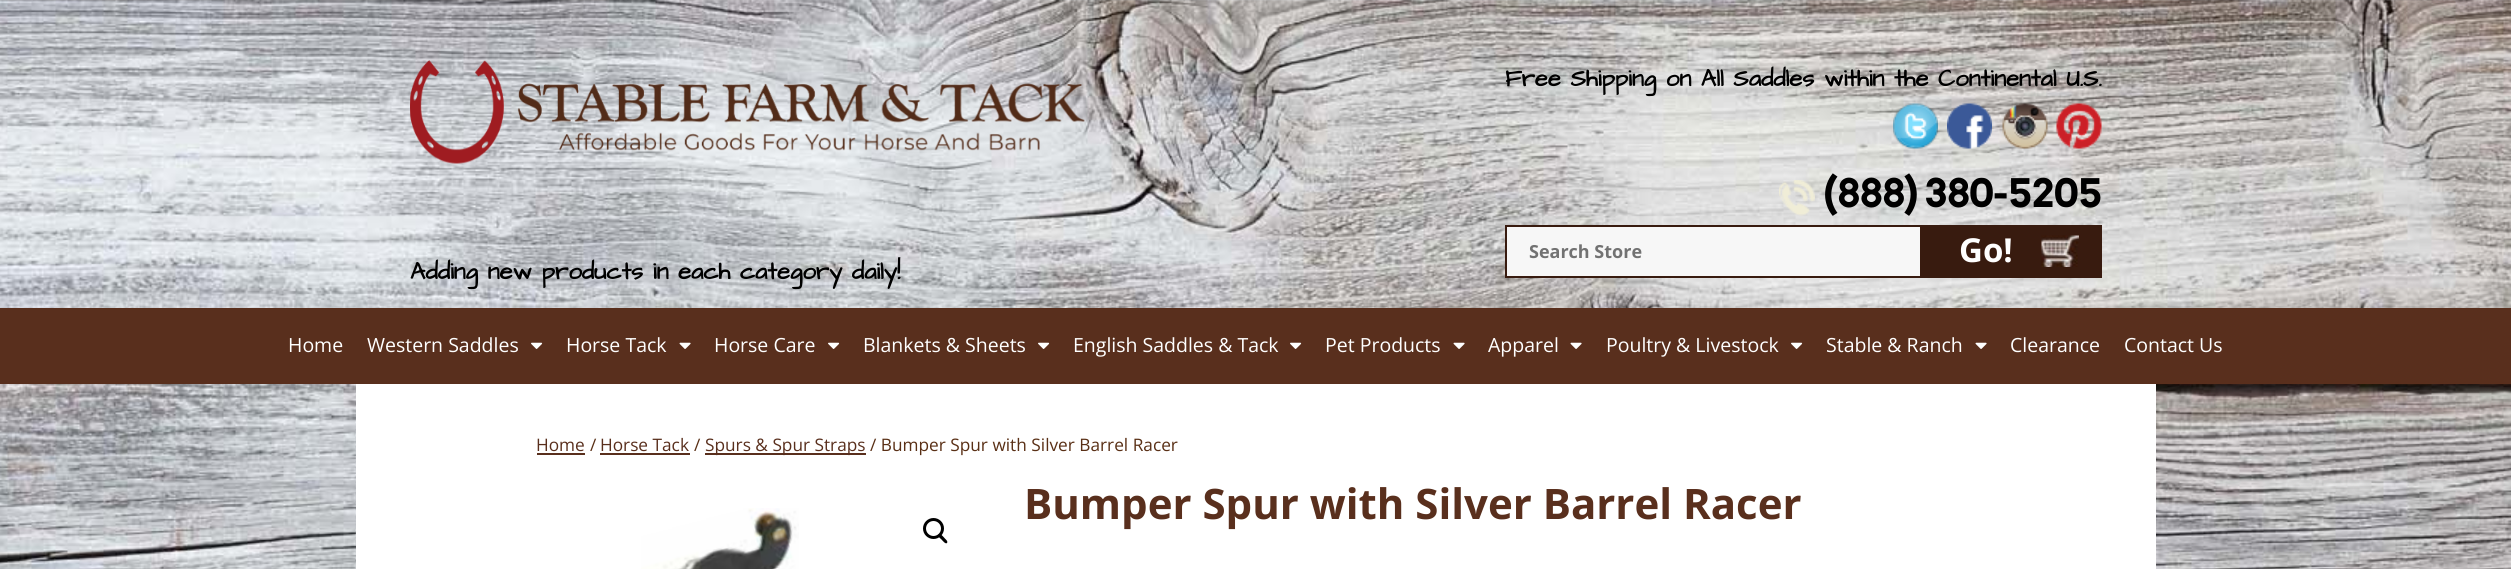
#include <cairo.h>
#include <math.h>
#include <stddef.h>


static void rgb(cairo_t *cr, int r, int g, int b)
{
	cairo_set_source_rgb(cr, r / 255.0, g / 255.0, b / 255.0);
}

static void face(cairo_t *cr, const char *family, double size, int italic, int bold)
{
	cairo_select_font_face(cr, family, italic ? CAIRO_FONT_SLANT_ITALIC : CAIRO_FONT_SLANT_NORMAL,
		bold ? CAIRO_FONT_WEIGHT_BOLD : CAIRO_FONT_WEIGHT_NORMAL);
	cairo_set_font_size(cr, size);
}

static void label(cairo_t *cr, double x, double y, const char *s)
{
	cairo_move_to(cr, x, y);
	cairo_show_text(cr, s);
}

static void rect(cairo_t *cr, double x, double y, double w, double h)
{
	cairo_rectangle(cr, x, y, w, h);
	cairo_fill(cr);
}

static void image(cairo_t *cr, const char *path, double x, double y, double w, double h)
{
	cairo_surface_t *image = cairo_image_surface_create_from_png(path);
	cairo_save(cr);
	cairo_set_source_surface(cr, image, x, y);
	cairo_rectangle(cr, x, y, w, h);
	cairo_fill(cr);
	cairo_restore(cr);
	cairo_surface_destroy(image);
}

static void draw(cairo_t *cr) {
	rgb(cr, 255, 255, 255);
	cairo_paint(cr);
	image(cr, "image0.png", 0, 0, 2511, 569);
	face(cr, "Architects Daughter", 24, 0, 1);
	rgb(cr, 0, 0, 0);
	label(cr, 1505, 86, "Free Shipping on All Saddles within the Continental U.S.");
	image(cr, "image1.png", 1893, 103, 45, 46);
	image(cr, "image2.png", 1947, 103, 45, 46);
	image(cr, "image3.png", 2002, 103, 46, 46);
	image(cr, "image4.png", 2056, 103, 46, 46);
	image(cr, "image5.png", 1779, 180, 36, 36);
	face(cr, "Arvo", 39, 0, 1);
	label(cr, 1823, 207, "(888) 380-5205");
	rgb(cr, 247, 247, 247);
	cairo_rectangle(cr, 1506, 226, 415, 51);
	cairo_fill_preserve(cr);
	rgb(cr, 56, 27, 15);
	cairo_stroke(cr);
	face(cr, "Open Sans", 18, 0, 1);
	rgb(cr, 114, 114, 114);
	label(cr, 1529, 258, "Search Store");
	rgb(cr, 56, 27, 15);
	rect(cr, 1922, 225, 180, 53);
	face(cr, "Open Sans", 33, 0, 1);
	rgb(cr, 255, 255, 255);
	label(cr, 1959, 262, "Go!");
	image(cr, "image6.png", 2041, 235, 38, 32);
	image(cr, "image7.png", 410, 60, 675, 104);
	face(cr, "Architects Daughter", 24, 0, 1);
	rgb(cr, 0, 0, 0);
	label(cr, 410, 279, "Adding new products in each category daily!");
	rgb(cr, 89, 47, 29);
	rect(cr, 0, 308, 2511, 76);
	face(cr, "Open Sans", 19.5, 0, 0);
	rgb(cr, 255, 255, 255);
	label(cr, 288, 352, "Home");
	label(cr, 367, 352, "Western Saddles");
	image(cr, "image8.png", 531, 342, 12, 7);
	label(cr, 566, 352, "Horse Tack");
	image(cr, "image9.png", 679, 342, 12, 7);
	label(cr, 714, 352, "Horse Care");
	image(cr, "image8.png", 828, 342, 12, 7);
	label(cr, 863, 352, "Blankets & Sheets");
	image(cr, "image8.png", 1038, 342, 12, 7);
	label(cr, 1073, 352, "English Saddles & Tack");
	image(cr, "image8.png", 1290, 342, 12, 7);
	label(cr, 1325, 352, "Pet Products");
	image(cr, "image9.png", 1453, 342, 12, 7);
	label(cr, 1488, 352, "Apparel");
	image(cr, "image9.png", 1570, 342, 12, 7);
	label(cr, 1606, 352, "Poultry & Livestock");
	image(cr, "image8.png", 1791, 342, 12, 7);
	label(cr, 1826, 352, "Stable & Ranch");
	image(cr, "image9.png", 1975, 342, 12, 7);
	label(cr, 2010, 352, "Clearance");
	label(cr, 2124, 352, "Contact Us");
	rect(cr, 356, 384, 1800, 185);
	face(cr, "Open Sans", 17.25, 0, 0);
	rgb(cr, 89, 47, 29);
	label(cr, 536, 451, "Home");
	rect(cr, 537, 453, 48, 2);
	rgb(cr, 89, 47, 21);
	label(cr, 590, 451, "/");
	rgb(cr, 89, 47, 29);
	label(cr, 600, 451, "Horse Tack");
	rect(cr, 600, 453, 90, 2);
	rgb(cr, 89, 47, 21);
	label(cr, 694, 451, "/");
	rgb(cr, 89, 47, 29);
	rect(cr, 705, 453, 161, 2);
	label(cr, 705, 451, "Spurs & Spur Straps");
	rgb(cr, 89, 47, 21);
	label(cr, 870, 451, "/ Bumper Spur with Silver Barrel Racer");
	image(cr, "image10.png", 641, 508, 158, 61);
	cairo_arc(cr, 933.5, 528.5, 9, 0, 2 * M_PI);
	rgb(cr, 0, 0, 0);
	cairo_set_line_width(cr, 3);
	cairo_stroke(cr);
	cairo_new_path(cr);
	cairo_move_to(cr, 938.5, 534.5);
	cairo_curve_to(cr, 940, 532.5, 943, 536.5, 944, 537.5);
	cairo_curve_to(cr, 944.5, 538.5, 948.5, 541, 947, 543);
	cairo_curve_to(cr, 945.5, 544.5, 942.5, 540.5, 941.5, 539.5);
	cairo_curve_to(cr, 941, 539, 937, 536, 938.5, 534.5);
	cairo_close_path(cr);
	cairo_fill(cr);
	face(cr, "Open Sans", 42, 0, 1);
	rgb(cr, 89, 47, 29);
	label(cr, 1024, 519, "Bumper Spur with Silver Barrel Racer");
}

int main(void) {
	cairo_surface_t *surface = cairo_image_surface_create(CAIRO_FORMAT_RGB24, 2511, 569);
	cairo_t *cr = cairo_create(surface);
	cairo_font_options_t *options = cairo_font_options_create();
	cairo_font_options_set_hint_metrics(options, CAIRO_HINT_METRICS_OFF);
	cairo_font_options_set_hint_style(options, CAIRO_HINT_STYLE_NONE);
	cairo_set_font_options(cr, options);
	cairo_set_miter_limit(cr, 4);
	draw(cr);
	cairo_surface_write_to_png(surface, "render.png");
	cairo_font_options_destroy(options);
	cairo_destroy(cr);
	cairo_surface_destroy(surface);
	return 0;
}
